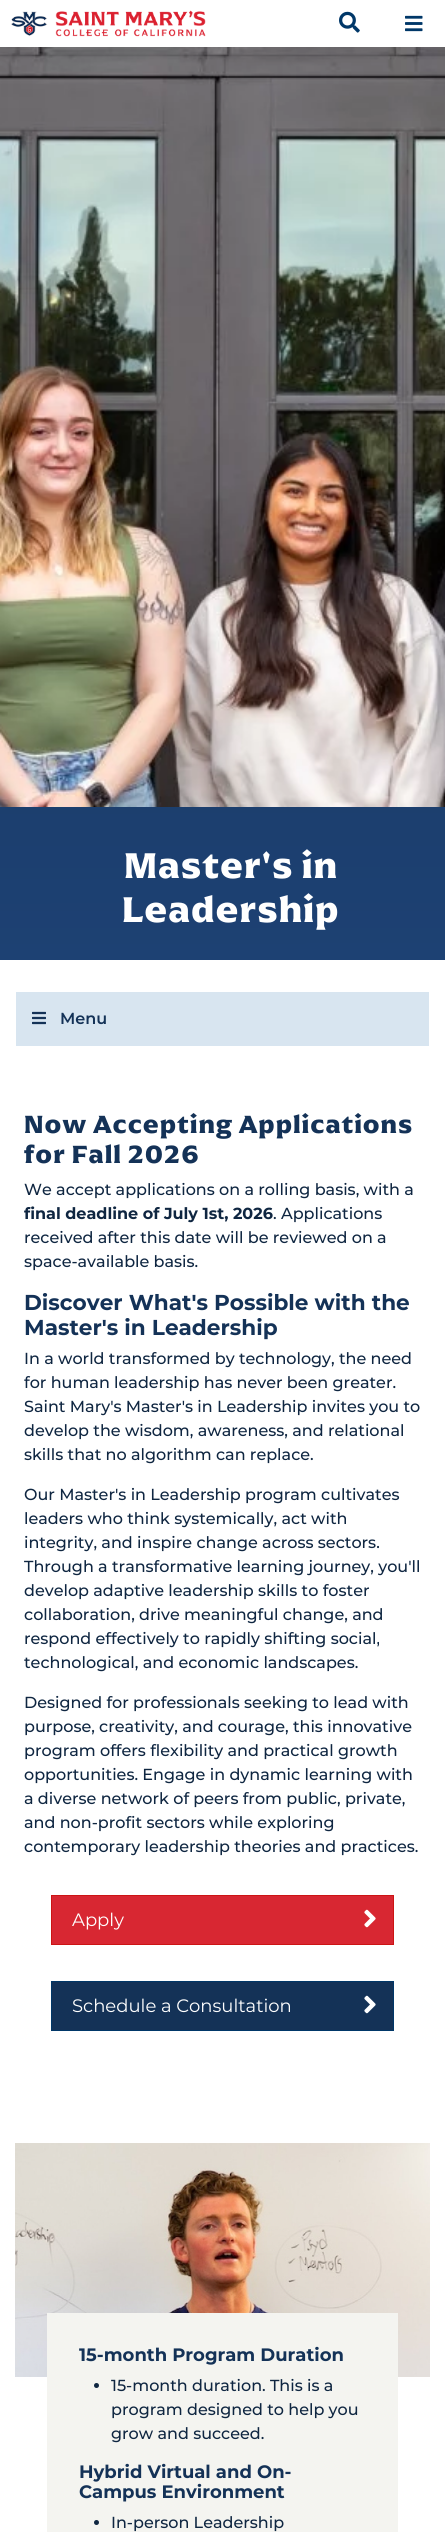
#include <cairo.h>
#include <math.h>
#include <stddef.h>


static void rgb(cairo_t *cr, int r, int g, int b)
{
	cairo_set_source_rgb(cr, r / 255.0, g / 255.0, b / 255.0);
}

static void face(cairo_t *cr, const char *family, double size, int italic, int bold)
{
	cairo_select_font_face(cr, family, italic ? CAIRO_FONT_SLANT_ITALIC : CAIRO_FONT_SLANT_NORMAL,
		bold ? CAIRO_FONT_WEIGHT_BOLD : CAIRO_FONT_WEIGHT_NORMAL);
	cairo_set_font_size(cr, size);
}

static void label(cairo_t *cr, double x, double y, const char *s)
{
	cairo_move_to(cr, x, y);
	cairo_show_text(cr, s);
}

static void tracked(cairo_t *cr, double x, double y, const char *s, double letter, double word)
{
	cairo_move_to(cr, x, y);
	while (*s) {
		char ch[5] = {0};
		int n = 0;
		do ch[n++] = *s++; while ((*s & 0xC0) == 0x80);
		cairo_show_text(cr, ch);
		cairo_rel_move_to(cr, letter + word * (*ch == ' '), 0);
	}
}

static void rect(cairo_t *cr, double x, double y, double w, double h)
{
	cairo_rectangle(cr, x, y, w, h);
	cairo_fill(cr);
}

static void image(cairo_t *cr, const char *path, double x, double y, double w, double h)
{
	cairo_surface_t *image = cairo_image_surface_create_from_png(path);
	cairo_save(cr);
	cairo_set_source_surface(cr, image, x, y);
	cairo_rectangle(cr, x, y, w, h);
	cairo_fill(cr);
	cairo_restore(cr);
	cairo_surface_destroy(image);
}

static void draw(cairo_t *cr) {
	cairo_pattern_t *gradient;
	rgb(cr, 255, 255, 255);
	cairo_paint(cr);
	image(cr, "image0.png", 11, 10, 195, 27);
	image(cr, "image1.png", 339, 11, 21, 22);
	image(cr, "image2.png", 405, 15, 18, 17);
	gradient = cairo_pattern_create_linear(223, 960, 222, 47);
	cairo_pattern_add_color_stop_rgba(gradient, 0, 0.114, 0.255, 0.451, 1);
	cairo_pattern_add_color_stop_rgba(gradient, 1, 0.078, 0.196, 0.341, 1);
	cairo_set_source(cr, gradient);
	cairo_pattern_destroy(gradient);
	rect(cr, 0, 807, 445, 153);
	image(cr, "image3.png", 0, 47, 445, 760);
	face(cr, "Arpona", 37.25, 0, 1);
	rgb(cr, 255, 255, 255);
	tracked(cr, 124, 878, "Master's in", 1, 0);
	tracked(cr, 122, 922, "Leadership", 1, 0);
	rgb(cr, 216, 229, 240);
	rect(cr, 16, 992, 413, 54);
	image(cr, "image4.png", 32, 1011, 14, 14);
	face(cr, "Montserrat SemiBold", 16, 0, 0);
	rgb(cr, 20, 50, 87);
	label(cr, 60, 1024, "Menu");
	face(cr, "Arpona", 25.9, 0, 1);
	tracked(cr, 24, 1133, "Now Accepting Applications", 1, 0);
	tracked(cr, 24, 1163, "for Fall 2026", 1, 0);
	face(cr, "Montserrat Medium", 16, 0, 0);
	rgb(cr, 15, 38, 65);
	label(cr, 24, 1195, "We accept applications on a rolling basis, with a");
	face(cr, "Montserrat", 16, 0, 1);
	label(cr, 24, 1219, "final deadline of July 1st, 2026");
	face(cr, "Montserrat Medium", 16, 0, 0);
	label(cr, 273, 1219, ". Applications");
	label(cr, 24, 1243, "received after this date will be reviewed on a");
	label(cr, 24, 1267, "space-available basis.");
	face(cr, "Montserrat", 21.6, 0, 1);
	rgb(cr, 20, 50, 87);
	label(cr, 24, 1310, "Discover What's Possible with the");
	label(cr, 24, 1335, "Master's in Leadership");
	face(cr, "Montserrat Medium", 16, 0, 0);
	rgb(cr, 15, 38, 65);
	label(cr, 24, 1364, "In a world transformed by technology, the need");
	label(cr, 24, 1388, "for human leadership has never been greater.");
	label(cr, 24, 1412, "Saint Mary's Master's in Leadership invites you to");
	label(cr, 24, 1436, "develop the wisdom, awareness, and relational");
	label(cr, 24, 1460, "skills that no algorithm can replace.");
	label(cr, 24, 1500, "Our Master's in Leadership program cultivates");
	label(cr, 24, 1524, "leaders who think systemically, act with");
	label(cr, 24, 1548, "integrity, and inspire change across sectors.");
	label(cr, 24, 1572, "Through a transformative learning journey, you'll");
	label(cr, 24, 1596, "develop adaptive leadership skills to foster");
	label(cr, 24, 1620, "collaboration, drive meaningful change, and");
	label(cr, 24, 1644, "respond effectively to rapidly shifting social,");
	label(cr, 24, 1668, "technological, and economic landscapes.");
	label(cr, 24, 1708, "Designed for professionals seeking to lead with");
	label(cr, 24, 1732, "purpose, creativity, and courage, this innovative");
	label(cr, 24, 1756, "program offers flexibility and practical growth");
	label(cr, 24, 1780, "opportunities. Engage in dynamic learning with");
	label(cr, 24, 1804, "a diverse network of peers from public, private,");
	label(cr, 24, 1828, "and non-profit sectors while exploring");
	label(cr, 24, 1852, "contemporary leadership theories and practices.");
	rgb(cr, 216, 39, 50);
	cairo_rectangle(cr, 51.5, 1895.5, 342, 49);
	cairo_fill_preserve(cr);
	rgb(cr, 204, 20, 20);
	cairo_set_line_width(cr, 1);
	cairo_stroke(cr);
	face(cr, "Montserrat", 18, 0, 0);
	rgb(cr, 255, 255, 255);
	label(cr, 72, 1926, "Apply");
	image(cr, "image5.png", 364, 1909, 12, 19);
	rgb(cr, 20, 50, 87);
	cairo_rectangle(cr, 51.5, 1981.5, 342, 49);
	cairo_fill_preserve(cr);
	rgb(cr, 0, 55, 104);
	cairo_stroke(cr);
	rgb(cr, 255, 255, 255);
	label(cr, 72, 2012, "Schedule a Consultation");
	image(cr, "image6.png", 364, 1995, 12, 19);
	image(cr, "image7.png", 15, 2143, 415, 234);
	rgb(cr, 244, 244, 240);
	rect(cr, 47, 2313, 351, 219);
	face(cr, "Montserrat", 18, 0, 1);
	rgb(cr, 20, 50, 87);
	label(cr, 79, 2361, "15-month Program Duration");
	rgb(cr, 15, 38, 65);
	cairo_new_path(cr);
	cairo_arc(cr, 96.5, 2385.5, 2.5, 0, 2 * M_PI);
	cairo_fill(cr);
	face(cr, "Montserrat Medium", 16, 0, 0);
	label(cr, 111, 2391, "15-month duration. This is a");
	label(cr, 111, 2415, "program designed to help you");
	label(cr, 111, 2439, "grow and succeed.");
	face(cr, "Montserrat", 18, 0, 1);
	rgb(cr, 20, 50, 87);
	label(cr, 79, 2478, "Hybrid Virtual and On-");
	label(cr, 79, 2498, "Campus Environment");
	rgb(cr, 15, 38, 65);
	cairo_new_path(cr);
	cairo_arc(cr, 96.5, 2522.5, 2.5, 0, 2 * M_PI);
	cairo_fill(cr);
	face(cr, "Montserrat Medium", 16, 0, 0);
	label(cr, 111, 2528, "In-person Leadership");
}

int main(void) {
	cairo_surface_t *surface = cairo_image_surface_create(CAIRO_FORMAT_RGB24, 445, 2532);
	cairo_t *cr = cairo_create(surface);
	cairo_font_options_t *options = cairo_font_options_create();
	cairo_font_options_set_hint_metrics(options, CAIRO_HINT_METRICS_OFF);
	cairo_font_options_set_hint_style(options, CAIRO_HINT_STYLE_NONE);
	cairo_set_font_options(cr, options);
	cairo_set_miter_limit(cr, 4);
	draw(cr);
	cairo_surface_write_to_png(surface, "render.png");
	cairo_font_options_destroy(options);
	cairo_destroy(cr);
	cairo_surface_destroy(surface);
	return 0;
}
